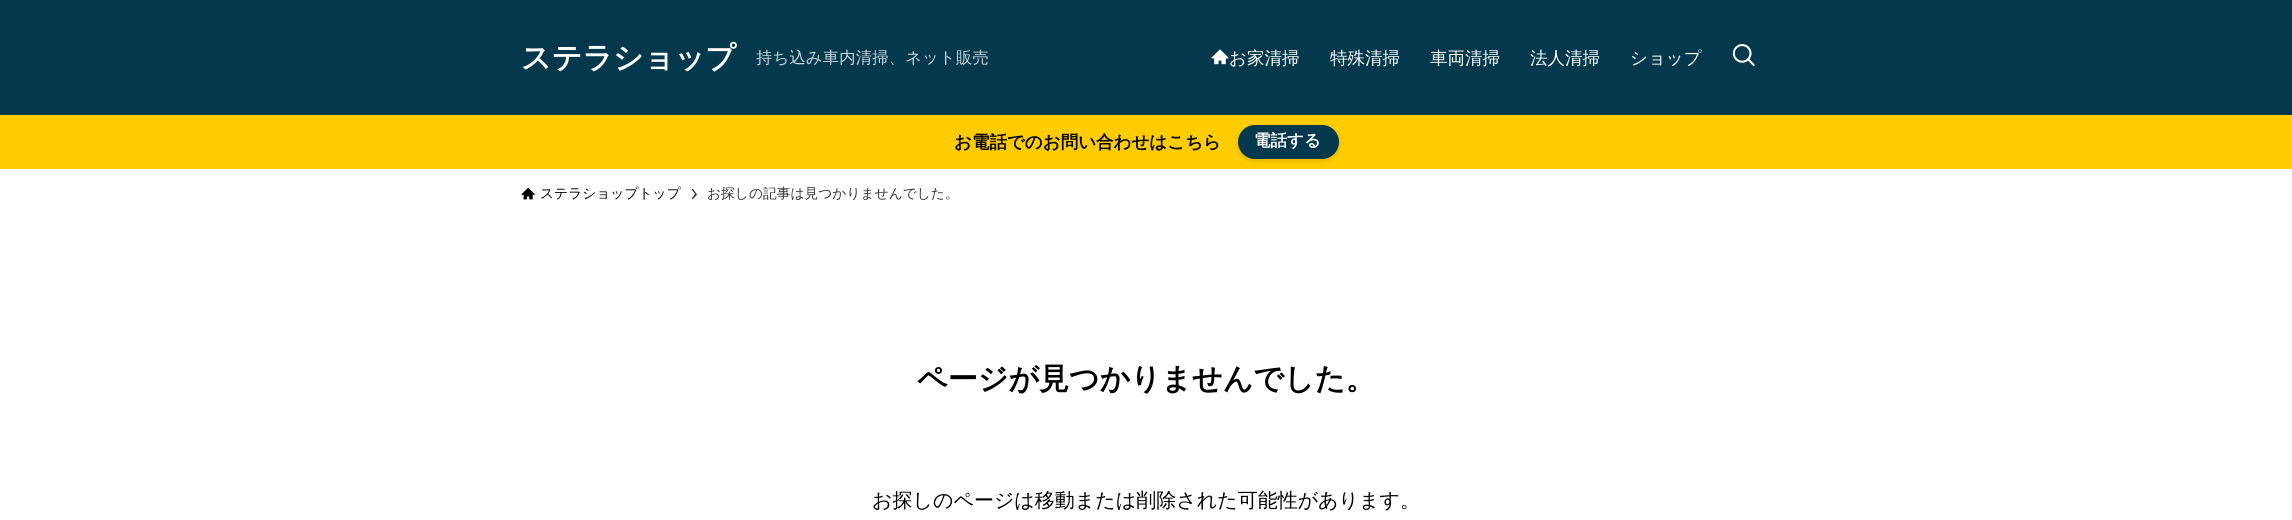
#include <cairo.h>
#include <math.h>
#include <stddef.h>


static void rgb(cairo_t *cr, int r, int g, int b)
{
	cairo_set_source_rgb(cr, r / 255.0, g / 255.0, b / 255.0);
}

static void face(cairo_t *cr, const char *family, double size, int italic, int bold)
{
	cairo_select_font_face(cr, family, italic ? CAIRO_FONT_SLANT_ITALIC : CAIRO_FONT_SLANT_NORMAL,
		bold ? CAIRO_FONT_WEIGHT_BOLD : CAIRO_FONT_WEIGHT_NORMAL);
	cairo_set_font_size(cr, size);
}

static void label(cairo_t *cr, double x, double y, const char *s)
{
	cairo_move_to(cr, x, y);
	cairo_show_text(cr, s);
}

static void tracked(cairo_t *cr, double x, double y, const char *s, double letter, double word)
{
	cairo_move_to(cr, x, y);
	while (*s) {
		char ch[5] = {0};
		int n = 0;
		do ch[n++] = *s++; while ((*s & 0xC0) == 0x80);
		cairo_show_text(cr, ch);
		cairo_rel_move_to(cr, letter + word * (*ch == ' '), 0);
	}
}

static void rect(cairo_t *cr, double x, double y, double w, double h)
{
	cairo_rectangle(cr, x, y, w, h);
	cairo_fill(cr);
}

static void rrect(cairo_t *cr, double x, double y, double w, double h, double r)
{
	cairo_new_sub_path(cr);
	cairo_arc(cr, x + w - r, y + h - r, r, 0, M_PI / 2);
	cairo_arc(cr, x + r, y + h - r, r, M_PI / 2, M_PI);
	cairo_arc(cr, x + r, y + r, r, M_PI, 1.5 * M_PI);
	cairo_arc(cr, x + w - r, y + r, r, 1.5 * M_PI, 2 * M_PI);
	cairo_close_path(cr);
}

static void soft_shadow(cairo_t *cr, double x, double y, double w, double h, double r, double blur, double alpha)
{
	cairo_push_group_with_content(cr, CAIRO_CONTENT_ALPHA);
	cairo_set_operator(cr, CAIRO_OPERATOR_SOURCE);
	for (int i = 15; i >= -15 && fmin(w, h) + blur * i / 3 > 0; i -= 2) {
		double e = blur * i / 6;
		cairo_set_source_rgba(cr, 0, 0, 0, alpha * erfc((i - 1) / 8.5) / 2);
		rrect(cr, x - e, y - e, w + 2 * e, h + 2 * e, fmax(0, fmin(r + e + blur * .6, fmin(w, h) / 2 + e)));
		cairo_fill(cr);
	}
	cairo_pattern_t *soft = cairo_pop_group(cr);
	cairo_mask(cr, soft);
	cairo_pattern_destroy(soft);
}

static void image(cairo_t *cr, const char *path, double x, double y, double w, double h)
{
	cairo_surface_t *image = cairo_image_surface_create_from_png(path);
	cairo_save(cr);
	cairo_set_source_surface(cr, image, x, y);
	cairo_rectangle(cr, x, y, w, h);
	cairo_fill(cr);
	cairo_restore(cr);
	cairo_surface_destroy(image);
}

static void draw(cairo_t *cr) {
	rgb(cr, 255, 255, 255);
	cairo_paint(cr);
	rgb(cr, 4, 56, 76);
	rect(cr, 0, 0, 2292, 115);
	face(cr, "WenQuanYi Zen Hei", 30, 0, 1);
	rgb(cr, 255, 255, 255);
	label(cr, 521, 68, "ステラショップ");
	face(cr, "WenQuanYi Zen Hei Medium", 16.25, 0, 0);
	rgb(cr, 205, 215, 219);
	tracked(cr, 756, 63, "持ち込み車内清掃、ネット販売", 0.25, 0);
	image(cr, "image0.png", 1211, 49, 18, 16);
	face(cr, "WenQuanYi Zen Hei Medium", 17.5, 0, 0);
	rgb(cr, 255, 255, 255);
	label(cr, 1229, 64, "お家清掃");
	label(cr, 1330, 64, "特殊清掃");
	label(cr, 1430, 64, "車両清掃");
	label(cr, 1530, 64, "法人清掃");
	label(cr, 1630, 64, "ショップ");
	image(cr, "image1.png", 1732, 44, 23, 22);
	rgb(cr, 255, 204, 0);
	rect(cr, 0, 115, 2292, 54);
	face(cr, "WenQuanYi Zen Hei", 17.5, 0, 1);
	rgb(cr, 0, 0, 0);
	label(cr, 954, 148, "お電話でのお問い合わせはこちら");
	rgb(cr, 0, 0, 0);
	soft_shadow(cr, 1238, 128, 101, 33, 16.5, 2.5, 0.12);
	rgb(cr, 4, 56, 76);
	rrect(cr, 1238, 125, 101, 34, 17);
	cairo_fill(cr);
	face(cr, "WenQuanYi Zen Hei", 16.5, 0, 1);
	rgb(cr, 255, 255, 255);
	label(cr, 1254, 146, "電話する");
	image(cr, "image2.png", 521, 187, 14, 13);
	face(cr, "WenQuanYi Zen Hei Medium", 13.75, 0, 0);
	rgb(cr, 0, 0, 0);
	label(cr, 540, 198, "ステラショップトップ");
	rgb(cr, 51, 51, 51);
	cairo_new_path(cr);
	cairo_move_to(cr, 693, 189);
	cairo_line_to(cr, 691.5, 189);
	cairo_line_to(cr, 695, 194);
	cairo_line_to(cr, 691.5, 199);
	cairo_line_to(cr, 693, 199);
	cairo_line_to(cr, 697, 194.5);
	cairo_close_path(cr);
	cairo_fill(cr);
	label(cr, 707, 198, "お探しの記事は見つかりませんでした。");
	face(cr, "WenQuanYi Zen Hei", 30, 0, 1);
	rgb(cr, 0, 0, 0);
	label(cr, 917, 389, "ページが見つかりませんでした。");
	face(cr, "WenQuanYi Zen Hei Medium", 20, 0, 0);
	label(cr, 872, 507, "お探しのページは移動または削除された可能性があります。");
}

int main(void) {
	cairo_surface_t *surface = cairo_image_surface_create(CAIRO_FORMAT_RGB24, 2292, 520);
	cairo_t *cr = cairo_create(surface);
	cairo_font_options_t *options = cairo_font_options_create();
	cairo_font_options_set_hint_metrics(options, CAIRO_HINT_METRICS_OFF);
	cairo_font_options_set_hint_style(options, CAIRO_HINT_STYLE_NONE);
	cairo_set_font_options(cr, options);
	cairo_set_miter_limit(cr, 4);
	draw(cr);
	cairo_surface_write_to_png(surface, "render.png");
	cairo_font_options_destroy(options);
	cairo_destroy(cr);
	cairo_surface_destroy(surface);
	return 0;
}
